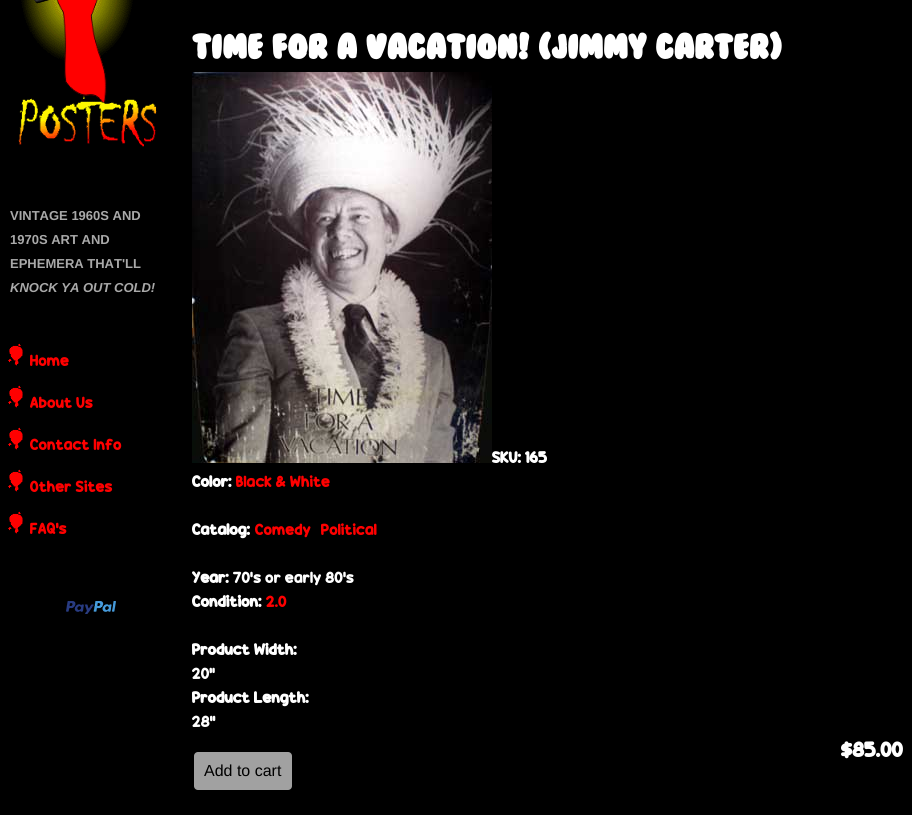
#include <cairo.h>
#include <math.h>
#include <stddef.h>


static void rgb(cairo_t *cr, int r, int g, int b)
{
	cairo_set_source_rgb(cr, r / 255.0, g / 255.0, b / 255.0);
}

static void face(cairo_t *cr, const char *family, double size, int italic, int bold)
{
	cairo_select_font_face(cr, family, italic ? CAIRO_FONT_SLANT_ITALIC : CAIRO_FONT_SLANT_NORMAL,
		bold ? CAIRO_FONT_WEIGHT_BOLD : CAIRO_FONT_WEIGHT_NORMAL);
	cairo_set_font_size(cr, size);
}

static void label(cairo_t *cr, double x, double y, const char *s)
{
	cairo_move_to(cr, x, y);
	cairo_show_text(cr, s);
}

static void rrect(cairo_t *cr, double x, double y, double w, double h, double r)
{
	cairo_new_sub_path(cr);
	cairo_arc(cr, x + w - r, y + h - r, r, 0, M_PI / 2);
	cairo_arc(cr, x + r, y + h - r, r, M_PI / 2, M_PI);
	cairo_arc(cr, x + r, y + r, r, M_PI, 1.5 * M_PI);
	cairo_arc(cr, x + w - r, y + r, r, 1.5 * M_PI, 2 * M_PI);
	cairo_close_path(cr);
}

static void image(cairo_t *cr, const char *path, double x, double y, double w, double h)
{
	cairo_surface_t *image = cairo_image_surface_create_from_png(path);
	cairo_save(cr);
	cairo_set_source_surface(cr, image, x, y);
	cairo_rectangle(cr, x, y, w, h);
	cairo_fill(cr);
	cairo_restore(cr);
	cairo_surface_destroy(image);
}

static void draw(cairo_t *cr) {
	rgb(cr, 0, 0, 0);
	cairo_paint(cr);
	image(cr, "image0.png", 18, 0, 139, 147);
	face(cr, "Liberation Sans", 13, 0, 1);
	rgb(cr, 169, 169, 169);
	label(cr, 10, 220, "VINTAGE 1960S AND");
	label(cr, 10, 244, "1970S ART AND");
	label(cr, 10, 268, "EPHEMERA THAT'LL");
	face(cr, "Liberation Sans", 13, 1, 1);
	label(cr, 10, 292, "KNOCK YA OUT COLD!");
	image(cr, "image1.png", 8, 343, 15, 23);
	face(cr, "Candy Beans", 16, 0, 0);
	rgb(cr, 255, 0, 0);
	label(cr, 30, 366, "Home");
	image(cr, "image1.png", 8, 385, 15, 23);
	label(cr, 30, 408, "About Us");
	image(cr, "image1.png", 8, 427, 15, 23);
	label(cr, 30, 450, "Contact Info");
	image(cr, "image1.png", 8, 469, 15, 23);
	label(cr, 30, 492, "Other Sites");
	image(cr, "image1.png", 8, 511, 15, 23);
	label(cr, 30, 534, "FAQ's");
	image(cr, "image2.png", 66, 601, 50, 13);
	face(cr, "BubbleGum", 32, 0, 1);
	rgb(cr, 255, 255, 255);
	label(cr, 192, 59, "Time For a Vacation! (Jimmy Carter)");
	image(cr, "image3.png", 192, 72, 300, 391);
	face(cr, "Candy Beans", 16, 0, 1);
	label(cr, 492, 463, "SKU: 165");
	label(cr, 192, 487, "Color:");
	face(cr, "Candy Beans", 16, 0, 0);
	rgb(cr, 255, 0, 0);
	label(cr, 236, 487, "Black & White");
	face(cr, "Candy Beans", 16, 0, 1);
	rgb(cr, 255, 255, 255);
	label(cr, 192, 535, "Catalog:");
	face(cr, "Candy Beans", 16, 0, 0);
	rgb(cr, 255, 0, 0);
	label(cr, 255, 535, "Comedy");
	label(cr, 321, 535, "Political");
	face(cr, "Candy Beans", 16, 0, 1);
	rgb(cr, 255, 255, 255);
	label(cr, 192, 583, "Year:");
	face(cr, "Candy Beans", 16, 0, 0);
	label(cr, 233, 583, "70’s or early 80’s");
	face(cr, "Candy Beans", 16, 0, 1);
	label(cr, 192, 607, "Condition:");
	face(cr, "Candy Beans", 16, 0, 0);
	rgb(cr, 255, 0, 0);
	label(cr, 266, 607, "2.0");
	face(cr, "Candy Beans", 16, 0, 1);
	rgb(cr, 255, 255, 255);
	label(cr, 192, 655, "Product Width:");
	face(cr, "Candy Beans", 16, 0, 0);
	label(cr, 192, 679, "20”");
	face(cr, "Candy Beans", 16, 0, 1);
	label(cr, 192, 703, "Product Length:");
	face(cr, "Candy Beans", 16, 0, 0);
	label(cr, 192, 727, "28”");
	face(cr, "Candy Beans", 21, 0, 1);
	label(cr, 841, 757, "$85.00");
	rgb(cr, 161, 161, 161);
	rrect(cr, 193, 751, 100, 40, 5);
	cairo_fill_preserve(cr);
	rgb(cr, 0, 0, 0);
	cairo_stroke(cr);
	face(cr, "Liberation Sans", 16, 0, 0);
	label(cr, 204, 776, "Add to cart");
}

int main(void) {
	cairo_surface_t *surface = cairo_image_surface_create(CAIRO_FORMAT_RGB24, 912, 815);
	cairo_t *cr = cairo_create(surface);
	cairo_font_options_t *options = cairo_font_options_create();
	cairo_font_options_set_hint_metrics(options, CAIRO_HINT_METRICS_OFF);
	cairo_font_options_set_hint_style(options, CAIRO_HINT_STYLE_NONE);
	cairo_set_font_options(cr, options);
	cairo_set_miter_limit(cr, 4);
	draw(cr);
	cairo_surface_write_to_png(surface, "render.png");
	cairo_font_options_destroy(options);
	cairo_destroy(cr);
	cairo_surface_destroy(surface);
	return 0;
}
